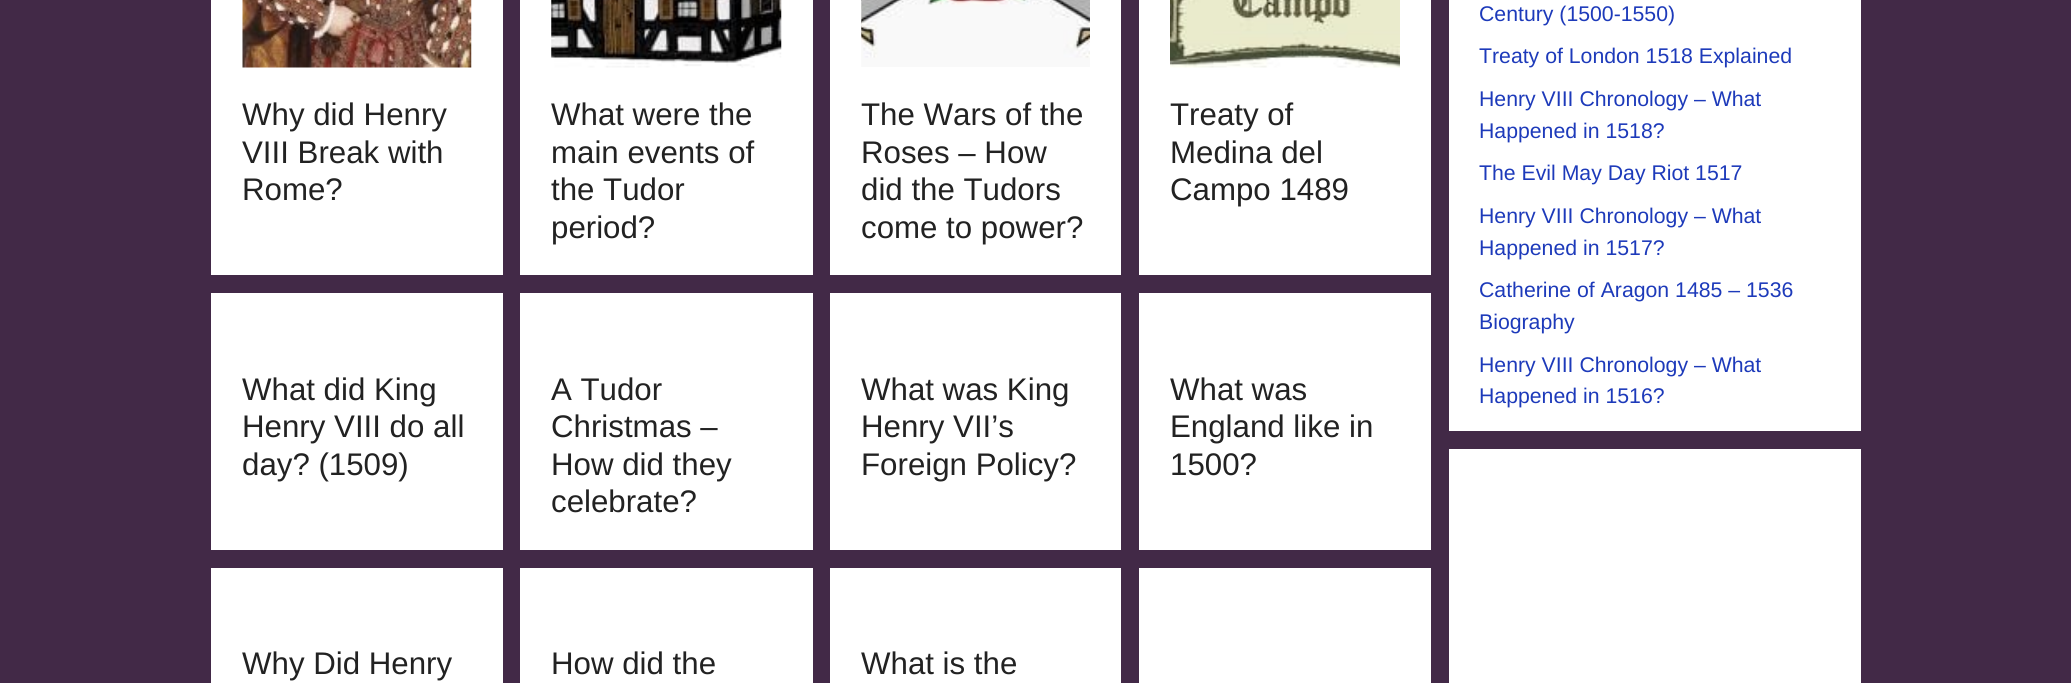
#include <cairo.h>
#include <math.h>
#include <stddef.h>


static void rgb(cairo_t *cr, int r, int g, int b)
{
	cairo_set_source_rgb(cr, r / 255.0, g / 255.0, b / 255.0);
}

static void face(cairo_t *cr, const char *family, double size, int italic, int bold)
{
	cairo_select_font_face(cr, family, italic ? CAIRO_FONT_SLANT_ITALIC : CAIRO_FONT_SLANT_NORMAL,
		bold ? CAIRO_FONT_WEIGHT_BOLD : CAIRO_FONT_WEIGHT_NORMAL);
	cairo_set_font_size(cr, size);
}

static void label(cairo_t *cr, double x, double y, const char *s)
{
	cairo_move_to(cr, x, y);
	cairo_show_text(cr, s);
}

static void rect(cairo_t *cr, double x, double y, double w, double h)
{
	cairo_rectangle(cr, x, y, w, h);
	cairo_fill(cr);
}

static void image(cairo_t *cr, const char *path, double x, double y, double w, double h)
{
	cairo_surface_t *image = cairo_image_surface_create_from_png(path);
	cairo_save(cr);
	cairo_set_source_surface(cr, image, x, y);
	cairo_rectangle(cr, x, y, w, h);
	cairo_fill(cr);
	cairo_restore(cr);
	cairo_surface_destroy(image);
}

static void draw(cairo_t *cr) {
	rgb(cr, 66, 41, 71);
	cairo_paint(cr);
	rgb(cr, 255, 255, 255);
	rect(cr, 211, 0, 292, 275);
	image(cr, "image0.png", 242, 0, 230, 68);
	face(cr, "Liberation Sans", 31.25, 0, 0);
	rgb(cr, 34, 34, 34);
	label(cr, 242, 125, "Why did Henry");
	label(cr, 242, 163, "VIII Break with");
	label(cr, 242, 200, "Rome?");
	rgb(cr, 255, 255, 255);
	rect(cr, 520, 0, 293, 275);
	image(cr, "image1.png", 551, 0, 231, 68);
	rgb(cr, 34, 34, 34);
	label(cr, 551, 125, "What were the");
	label(cr, 551, 163, "main events of");
	label(cr, 551, 200, "the Tudor");
	label(cr, 551, 238, "period?");
	rgb(cr, 255, 255, 255);
	rect(cr, 830, 0, 291, 275);
	image(cr, "image2.png", 861, 0, 229, 67);
	rgb(cr, 34, 34, 34);
	label(cr, 861, 125, "The Wars of the");
	label(cr, 861, 163, "Roses – How");
	label(cr, 861, 200, "did the Tudors");
	label(cr, 861, 238, "come to power?");
	rgb(cr, 255, 255, 255);
	rect(cr, 1139, 0, 292, 275);
	image(cr, "image3.png", 1170, 0, 230, 68);
	rgb(cr, 34, 34, 34);
	label(cr, 1170, 125, "Treaty of");
	label(cr, 1170, 163, "Medina del");
	label(cr, 1170, 200, "Campo 1489");
	rgb(cr, 255, 255, 255);
	rect(cr, 211, 293, 292, 257);
	rgb(cr, 34, 34, 34);
	label(cr, 242, 400, "What did King");
	label(cr, 242, 437, "Henry VIII do all");
	label(cr, 242, 475, "day? (1509)");
	rgb(cr, 255, 255, 255);
	rect(cr, 520, 293, 293, 257);
	rgb(cr, 34, 34, 34);
	label(cr, 551, 400, "A Tudor");
	label(cr, 551, 437, "Christmas –");
	label(cr, 551, 475, "How did they");
	label(cr, 551, 512, "celebrate?");
	rgb(cr, 255, 255, 255);
	rect(cr, 830, 293, 291, 257);
	rgb(cr, 34, 34, 34);
	label(cr, 861, 400, "What was King");
	label(cr, 861, 437, "Henry VII’s");
	label(cr, 861, 475, "Foreign Policy?");
	rgb(cr, 255, 255, 255);
	rect(cr, 1139, 293, 292, 257);
	rgb(cr, 34, 34, 34);
	label(cr, 1170, 400, "What was");
	label(cr, 1170, 437, "England like in");
	label(cr, 1170, 475, "1500?");
	rgb(cr, 255, 255, 255);
	rect(cr, 211, 568, 292, 115);
	rgb(cr, 34, 34, 34);
	label(cr, 242, 674, "Why Did Henry");
	rgb(cr, 255, 255, 255);
	rect(cr, 520, 568, 293, 115);
	rgb(cr, 34, 34, 34);
	label(cr, 551, 674, "How did the");
	rgb(cr, 255, 255, 255);
	rect(cr, 830, 568, 291, 115);
	rgb(cr, 34, 34, 34);
	label(cr, 861, 674, "What is the");
	rgb(cr, 255, 255, 255);
	rect(cr, 1139, 568, 292, 115);
	rect(cr, 1449, 0, 412, 431);
	face(cr, "Liberation Sans", 21.25, 0, 0);
	rgb(cr, 29, 58, 186);
	label(cr, 1479, 21, "Century (1500-1550)");
	label(cr, 1479, 63, "Treaty of London 1518 Explained");
	label(cr, 1479, 106, "Henry VIII Chronology – What");
	label(cr, 1479, 138, "Happened in 1518?");
	label(cr, 1479, 180, "The Evil May Day Riot 1517");
	label(cr, 1479, 223, "Henry VIII Chronology – What");
	label(cr, 1479, 255, "Happened in 1517?");
	label(cr, 1479, 297, "Catherine of Aragon 1485 – 1536");
	label(cr, 1479, 329, "Biography");
	label(cr, 1479, 372, "Henry VIII Chronology – What");
	label(cr, 1479, 403, "Happened in 1516?");
	rgb(cr, 255, 255, 255);
	rect(cr, 1449, 449, 412, 234);
}

int main(void) {
	cairo_surface_t *surface = cairo_image_surface_create(CAIRO_FORMAT_RGB24, 2071, 683);
	cairo_t *cr = cairo_create(surface);
	cairo_font_options_t *options = cairo_font_options_create();
	cairo_font_options_set_hint_metrics(options, CAIRO_HINT_METRICS_OFF);
	cairo_font_options_set_hint_style(options, CAIRO_HINT_STYLE_NONE);
	cairo_set_font_options(cr, options);
	cairo_set_miter_limit(cr, 4);
	draw(cr);
	cairo_surface_write_to_png(surface, "render.png");
	cairo_font_options_destroy(options);
	cairo_destroy(cr);
	cairo_surface_destroy(surface);
	return 0;
}
